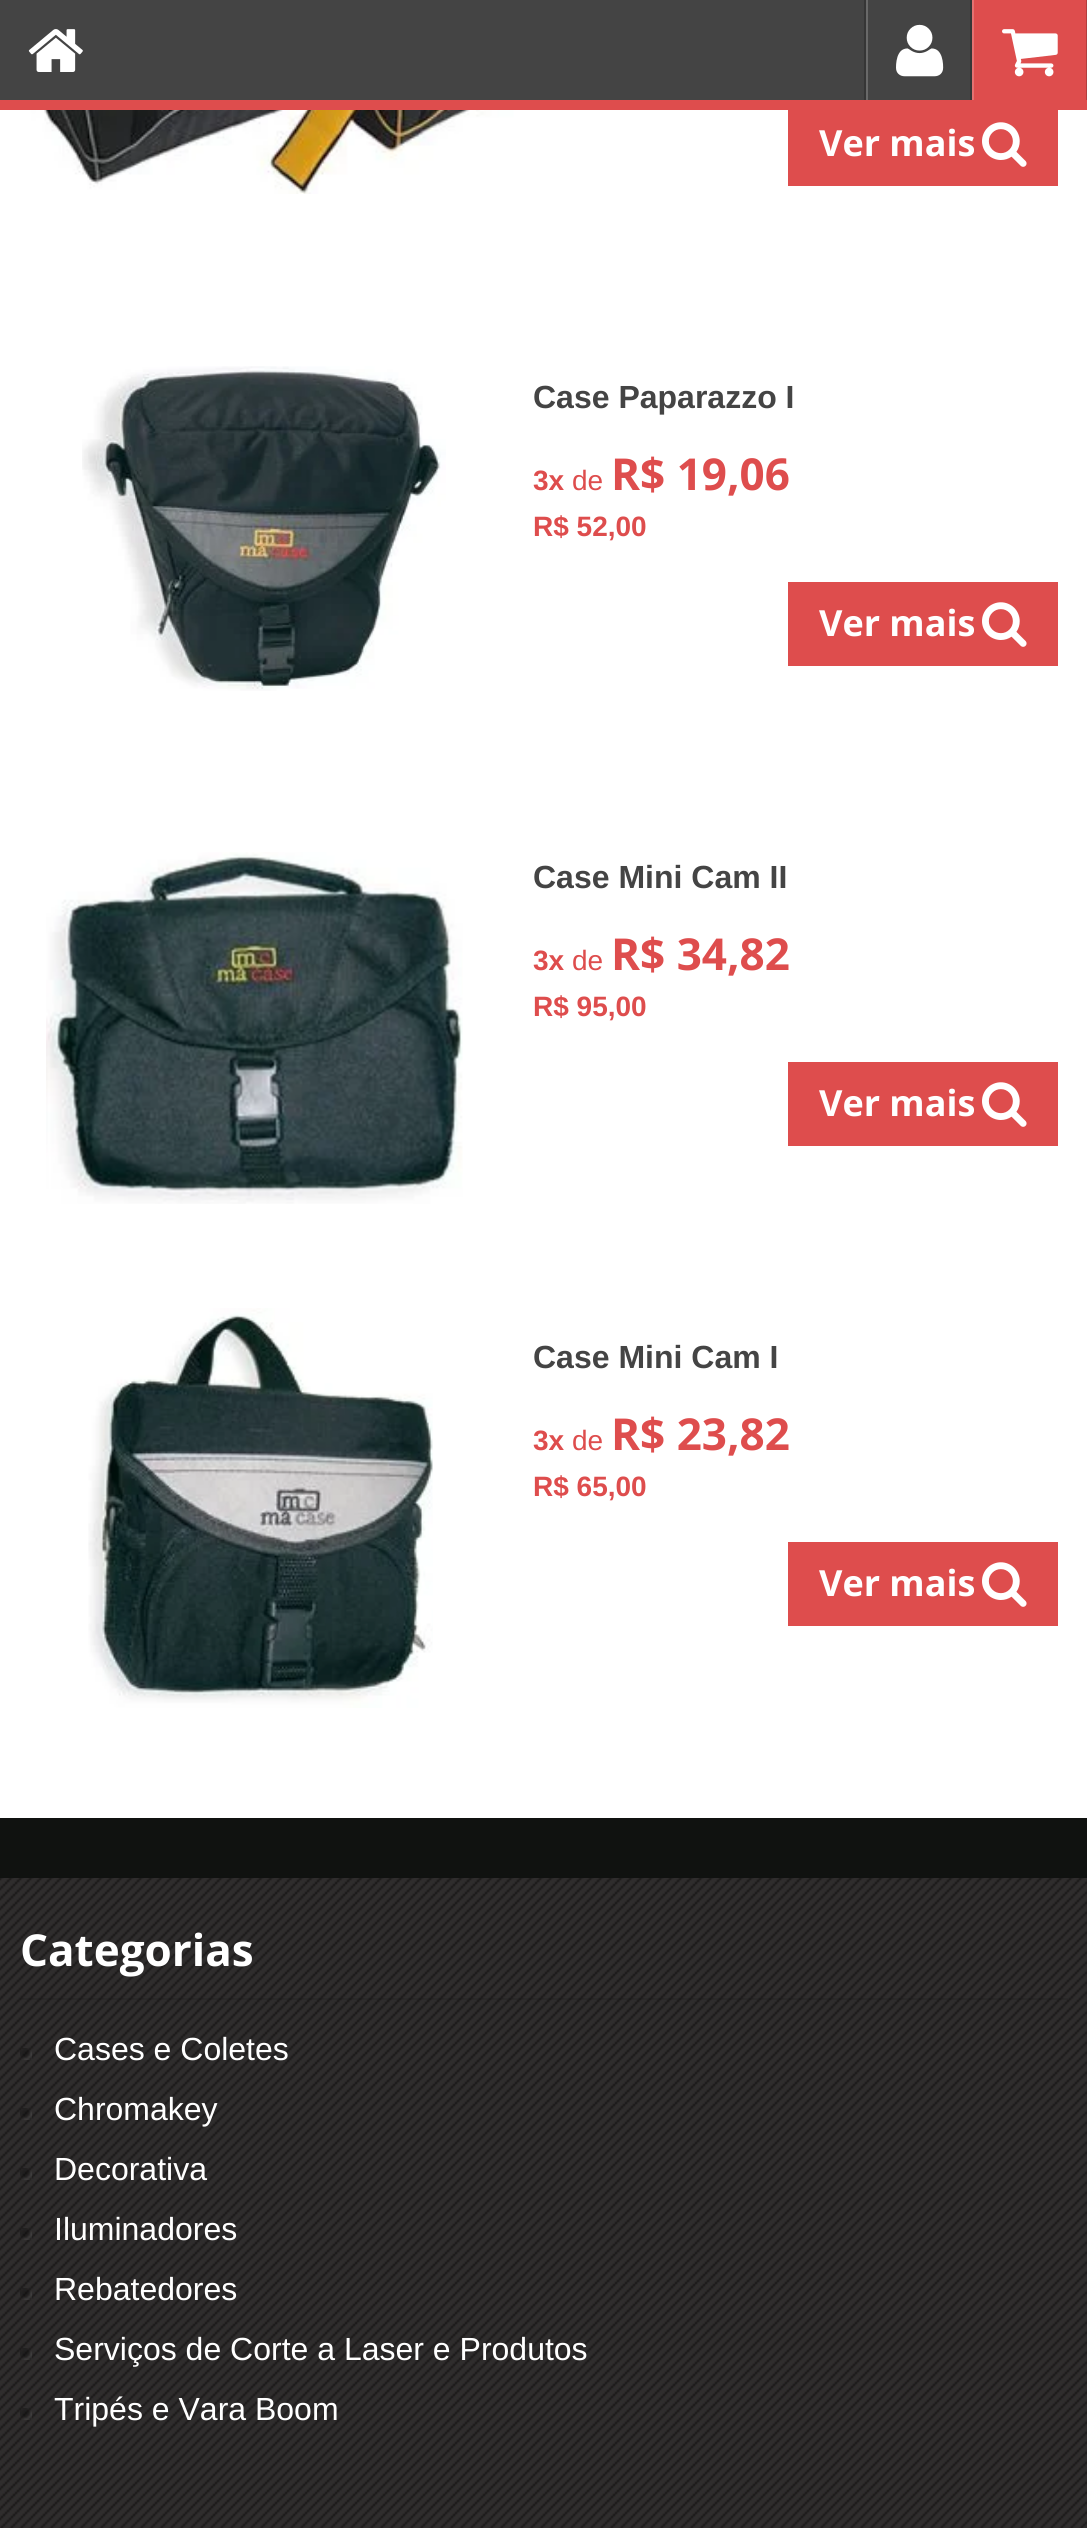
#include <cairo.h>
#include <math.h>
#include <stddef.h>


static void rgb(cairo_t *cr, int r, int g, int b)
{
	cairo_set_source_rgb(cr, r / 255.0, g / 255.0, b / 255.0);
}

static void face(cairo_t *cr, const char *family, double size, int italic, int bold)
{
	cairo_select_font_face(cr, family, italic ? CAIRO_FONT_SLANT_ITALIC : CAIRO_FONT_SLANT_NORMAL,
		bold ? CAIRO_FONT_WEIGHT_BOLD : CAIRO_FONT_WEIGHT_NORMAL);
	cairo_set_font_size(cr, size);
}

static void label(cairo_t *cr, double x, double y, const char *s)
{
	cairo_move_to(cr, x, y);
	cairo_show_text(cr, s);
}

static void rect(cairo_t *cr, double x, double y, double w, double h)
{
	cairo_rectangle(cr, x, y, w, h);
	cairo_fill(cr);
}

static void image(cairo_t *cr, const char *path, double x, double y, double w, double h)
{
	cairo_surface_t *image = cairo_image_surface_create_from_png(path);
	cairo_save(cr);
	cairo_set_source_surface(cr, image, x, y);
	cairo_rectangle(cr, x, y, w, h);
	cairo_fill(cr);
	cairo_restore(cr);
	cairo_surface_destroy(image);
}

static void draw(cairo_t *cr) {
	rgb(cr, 16, 18, 16);
	cairo_paint(cr);
	rgb(cr, 68, 68, 68);
	rect(cr, 0, 0, 970, 100);
	rgb(cr, 222, 77, 77);
	rect(cr, 0, 100, 1087, 10);
	image(cr, "image0.png", 28, 29, 55, 43);
	rgb(cr, 54, 54, 54);
	rect(cr, 864, 0, 2, 100);
	rect(cr, 970, 0, 2, 100);
	rgb(cr, 105, 105, 105);
	rect(cr, 866, 0, 2, 100);
	image(cr, "image1.png", 896, 24, 48, 53);
	rgb(cr, 222, 77, 77);
	rect(cr, 974, 0, 112, 100);
	rgb(cr, 178, 62, 62);
	rect(cr, 1086, 0, 1, 100);
	rgb(cr, 229, 113, 113);
	rect(cr, 972, 0, 2, 100);
	image(cr, "image2.png", 1002, 29, 56, 48);
	rgb(cr, 255, 255, 255);
	rect(cr, 0, 110, 1087, 1708);
	image(cr, "image3.png", 30, 110, 484, 84);
	rgb(cr, 222, 77, 77);
	rect(cr, 788, 110, 270, 76);
	face(cr, "Open Sans", 36, 0, 1);
	rgb(cr, 255, 255, 255);
	label(cr, 819, 156, "Ver mais");
	image(cr, "image4.png", 982, 122, 45, 45);
	image(cr, "image5.png", 82, 366, 364, 325);
	face(cr, "Liberation Sans", 32, 0, 1);
	rgb(cr, 68, 68, 68);
	label(cr, 533, 408, "Case Paparazzo I");
	face(cr, "Liberation Sans", 28, 0, 1);
	rgb(cr, 222, 77, 77);
	label(cr, 533, 490, "3x");
	face(cr, "Liberation Sans", 28, 0, 0);
	label(cr, 572, 490, "de");
	face(cr, "Open Sans", 44, 0, 1);
	label(cr, 611, 490, "R$ 19,06");
	face(cr, "Liberation Sans", 28, 0, 1);
	label(cr, 533, 536, "R$ 52,00");
	rect(cr, 788, 582, 270, 84);
	face(cr, "Open Sans", 36, 0, 1);
	rgb(cr, 255, 255, 255);
	label(cr, 819, 636, "Ver mais");
	image(cr, "image4.png", 982, 602, 45, 45);
	image(cr, "image6.png", 46, 852, 417, 352);
	face(cr, "Liberation Sans", 32, 0, 1);
	rgb(cr, 68, 68, 68);
	label(cr, 533, 888, "Case Mini Cam II");
	face(cr, "Liberation Sans", 28, 0, 1);
	rgb(cr, 222, 77, 77);
	label(cr, 533, 970, "3x");
	face(cr, "Liberation Sans", 28, 0, 0);
	label(cr, 572, 970, "de");
	face(cr, "Open Sans", 44, 0, 1);
	label(cr, 611, 970, "R$ 34,82");
	face(cr, "Liberation Sans", 28, 0, 1);
	label(cr, 533, 1016, "R$ 95,00");
	rect(cr, 788, 1062, 270, 84);
	face(cr, "Open Sans", 36, 0, 1);
	rgb(cr, 255, 255, 255);
	label(cr, 819, 1116, "Ver mais");
	image(cr, "image4.png", 982, 1082, 45, 45);
	image(cr, "image7.png", 88, 1308, 345, 400);
	face(cr, "Liberation Sans", 32, 0, 1);
	rgb(cr, 68, 68, 68);
	label(cr, 533, 1368, "Case Mini Cam I");
	face(cr, "Liberation Sans", 28, 0, 1);
	rgb(cr, 222, 77, 77);
	label(cr, 533, 1450, "3x");
	face(cr, "Liberation Sans", 28, 0, 0);
	label(cr, 572, 1450, "de");
	face(cr, "Open Sans", 44, 0, 1);
	label(cr, 611, 1450, "R$ 23,82");
	face(cr, "Liberation Sans", 28, 0, 1);
	label(cr, 533, 1496, "R$ 65,00");
	rect(cr, 788, 1542, 270, 84);
	face(cr, "Open Sans", 36, 0, 1);
	rgb(cr, 255, 255, 255);
	label(cr, 819, 1596, "Ver mais");
	image(cr, "image4.png", 982, 1562, 45, 45);
	rgb(cr, 23, 21, 21);
	rect(cr, 0, 1878, 1087, 650);
	image(cr, "image8.png", 0, 1878, 1087, 650);
	cairo_set_source_rgba(cr, 0, 0, 0, 0.1);
	rect(cr, 20, 1998, 1048, 2);
	face(cr, "Open Sans", 44, 0, 1);
	rgb(cr, 255, 255, 255);
	label(cr, 20, 1966, "Categorias");
	image(cr, "image9.png", 20, 2048, 12, 12);
	face(cr, "Liberation Sans", 32, 0, 0);
	label(cr, 54, 2060, "Cases e Coletes");
	image(cr, "image9.png", 20, 2108, 12, 12);
	label(cr, 54, 2120, "Chromakey");
	image(cr, "image9.png", 20, 2168, 12, 12);
	label(cr, 54, 2180, "Decorativa");
	image(cr, "image9.png", 20, 2228, 12, 12);
	label(cr, 54, 2240, "Iluminadores");
	image(cr, "image9.png", 20, 2288, 12, 12);
	label(cr, 54, 2300, "Rebatedores");
	image(cr, "image10.png", 20, 2348, 12, 12);
	label(cr, 54, 2360, "Serviços de Corte a Laser e Produtos");
	image(cr, "image10.png", 20, 2408, 12, 12);
	label(cr, 54, 2420, "Tripés e Vara Boom");
}

int main(void) {
	cairo_surface_t *surface = cairo_image_surface_create(CAIRO_FORMAT_RGB24, 1087, 2528);
	cairo_t *cr = cairo_create(surface);
	cairo_font_options_t *options = cairo_font_options_create();
	cairo_font_options_set_hint_metrics(options, CAIRO_HINT_METRICS_OFF);
	cairo_font_options_set_hint_style(options, CAIRO_HINT_STYLE_NONE);
	cairo_set_font_options(cr, options);
	cairo_set_miter_limit(cr, 4);
	draw(cr);
	cairo_surface_write_to_png(surface, "render.png");
	cairo_font_options_destroy(options);
	cairo_destroy(cr);
	cairo_surface_destroy(surface);
	return 0;
}
